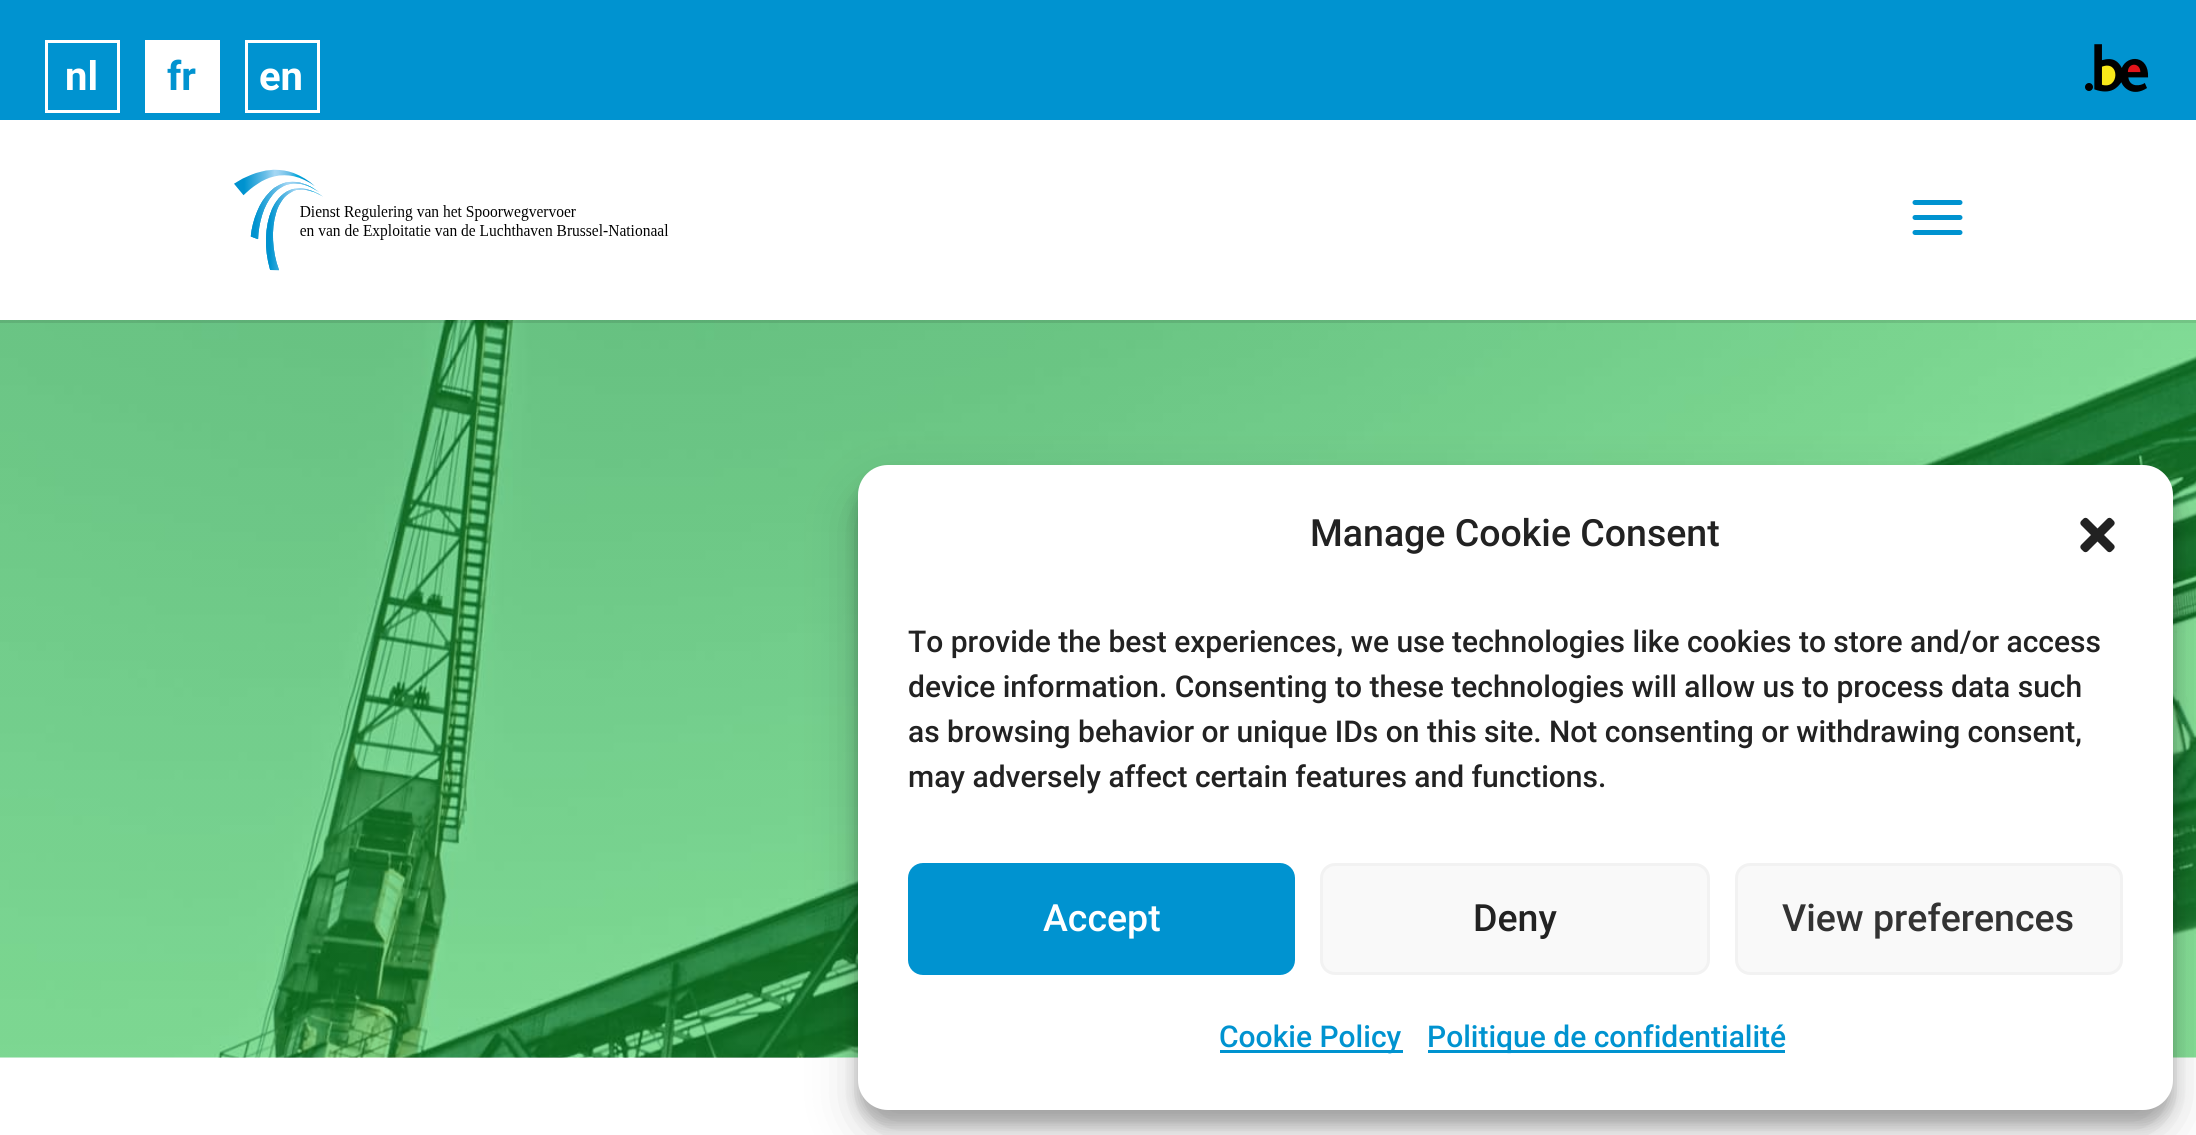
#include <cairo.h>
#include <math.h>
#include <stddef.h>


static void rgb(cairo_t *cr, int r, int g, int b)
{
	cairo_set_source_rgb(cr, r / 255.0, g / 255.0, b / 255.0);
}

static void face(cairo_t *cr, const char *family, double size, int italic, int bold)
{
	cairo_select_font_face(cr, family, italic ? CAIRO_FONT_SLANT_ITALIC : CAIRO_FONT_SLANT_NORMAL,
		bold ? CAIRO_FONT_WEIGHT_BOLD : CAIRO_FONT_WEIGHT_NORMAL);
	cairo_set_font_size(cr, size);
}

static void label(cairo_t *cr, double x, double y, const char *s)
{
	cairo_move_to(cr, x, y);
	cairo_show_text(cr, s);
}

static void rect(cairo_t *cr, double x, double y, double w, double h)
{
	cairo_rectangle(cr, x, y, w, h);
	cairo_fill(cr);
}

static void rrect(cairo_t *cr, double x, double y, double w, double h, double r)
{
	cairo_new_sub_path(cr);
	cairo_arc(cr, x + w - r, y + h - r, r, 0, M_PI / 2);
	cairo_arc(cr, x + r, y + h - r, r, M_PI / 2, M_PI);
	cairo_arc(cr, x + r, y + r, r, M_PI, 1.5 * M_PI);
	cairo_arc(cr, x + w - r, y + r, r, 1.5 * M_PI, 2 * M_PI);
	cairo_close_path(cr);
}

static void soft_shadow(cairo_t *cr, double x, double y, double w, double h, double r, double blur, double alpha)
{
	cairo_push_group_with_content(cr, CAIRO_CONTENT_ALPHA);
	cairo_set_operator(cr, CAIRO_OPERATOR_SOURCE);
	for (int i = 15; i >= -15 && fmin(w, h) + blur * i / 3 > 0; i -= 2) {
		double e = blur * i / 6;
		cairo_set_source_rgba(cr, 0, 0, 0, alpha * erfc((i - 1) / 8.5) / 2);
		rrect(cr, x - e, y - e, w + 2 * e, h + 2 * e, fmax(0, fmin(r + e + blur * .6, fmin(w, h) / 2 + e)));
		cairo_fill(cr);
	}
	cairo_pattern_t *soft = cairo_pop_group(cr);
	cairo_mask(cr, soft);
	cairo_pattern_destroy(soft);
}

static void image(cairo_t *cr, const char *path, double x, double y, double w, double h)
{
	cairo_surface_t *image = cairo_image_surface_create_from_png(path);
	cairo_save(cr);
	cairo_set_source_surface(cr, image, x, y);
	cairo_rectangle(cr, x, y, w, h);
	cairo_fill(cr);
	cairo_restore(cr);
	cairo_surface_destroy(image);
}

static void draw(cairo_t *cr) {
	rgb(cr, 255, 255, 255);
	cairo_paint(cr);
	rgb(cr, 0, 147, 208);
	rect(cr, 0, 0, 2196, 120);
	cairo_rectangle(cr, 46.5, 41.5, 72, 70);
	rgb(cr, 255, 255, 255);
	cairo_set_line_width(cr, 3);
	cairo_stroke(cr);
	face(cr, "Roboto", 40, 0, 1);
	label(cr, 65, 90, "nl");
	rect(cr, 145, 40, 75, 73);
	rgb(cr, 0, 147, 208);
	label(cr, 167, 90, "fr");
	cairo_rectangle(cr, 246.5, 41.5, 72, 70);
	rgb(cr, 255, 255, 255);
	cairo_stroke(cr);
	label(cr, 259, 90, "en");
	image(cr, "image0.png", 2085, 44, 64, 48);
	image(cr, "image3.png", 0, 320, 2196, 738);
	cairo_set_source_rgba(cr, 0, 0, 0, 0.1);
	cairo_new_path(cr);
	cairo_move_to(cr, 0, 320);
	cairo_line_to(cr, 0, 323);
	cairo_line_to(cr, 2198, 323);
	cairo_line_to(cr, 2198, 123);
	cairo_line_to(cr, 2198, 320);
	cairo_close_path(cr);
	cairo_fill(cr);
	image(cr, "image1.png", 234, 169, 435, 102);
	image(cr, "image2.png", 1912, 200, 51, 35);
	rgb(cr, 0, 0, 0);
	soft_shadow(cr, 858, 480, 1315, 645, 30, 7.5, 0.23);
	soft_shadow(cr, 858, 490, 1315, 645, 30, 25, 0.19);
	rgb(cr, 255, 255, 255);
	rrect(cr, 858, 465, 1315, 645, 30);
	cairo_fill(cr);
	face(cr, "Roboto Medium", 37.5, 0, 0);
	rgb(cr, 34, 34, 34);
	label(cr, 1310, 546, "Manage Cookie Consent");
	image(cr, "image4.png", 2080, 517, 35, 36);
	face(cr, "Roboto Medium", 30, 0, 0);
	label(cr, 908, 652, "To provide the best experiences, we use technologies like cookies to store and/or access");
	label(cr, 908, 697, "device information. Consenting to these technologies will allow us to process data such");
	label(cr, 908, 742, "as browsing behavior or unique IDs on this site. Not consenting or withdrawing consent,");
	label(cr, 908, 787, "may adversely affect certain features and functions.");
	rgb(cr, 0, 147, 208);
	rrect(cr, 909.5, 864.5, 384, 109, 13.5);
	cairo_fill_preserve(cr);
	cairo_stroke(cr);
	face(cr, "Roboto Medium", 37.5, 0, 0);
	rgb(cr, 255, 255, 255);
	label(cr, 1043, 931, "Accept");
	rgb(cr, 249, 249, 249);
	rrect(cr, 1321.5, 864.5, 387, 109, 13.5);
	cairo_fill_preserve(cr);
	rgb(cr, 242, 242, 242);
	cairo_stroke(cr);
	rgb(cr, 34, 34, 34);
	label(cr, 1473, 931, "Deny");
	rgb(cr, 249, 249, 249);
	rrect(cr, 1736.5, 864.5, 385, 109, 13.5);
	cairo_fill_preserve(cr);
	rgb(cr, 242, 242, 242);
	cairo_stroke(cr);
	rgb(cr, 51, 51, 51);
	label(cr, 1782, 931, "View preferences");
	rgb(cr, 0, 147, 208);
	rect(cr, 1220, 1050, 183, 3);
	face(cr, "Roboto Medium", 30, 0, 0);
	label(cr, 1219, 1047, "Cookie Policy");
	rect(cr, 1428, 1050, 357, 3);
	label(cr, 1427, 1047, "Politique de confidentialité");
}

int main(void) {
	cairo_surface_t *surface = cairo_image_surface_create(CAIRO_FORMAT_RGB24, 2196, 1135);
	cairo_t *cr = cairo_create(surface);
	cairo_font_options_t *options = cairo_font_options_create();
	cairo_font_options_set_hint_metrics(options, CAIRO_HINT_METRICS_OFF);
	cairo_font_options_set_hint_style(options, CAIRO_HINT_STYLE_NONE);
	cairo_set_font_options(cr, options);
	cairo_set_miter_limit(cr, 4);
	draw(cr);
	cairo_surface_write_to_png(surface, "render.png");
	cairo_font_options_destroy(options);
	cairo_destroy(cr);
	cairo_surface_destroy(surface);
	return 0;
}
